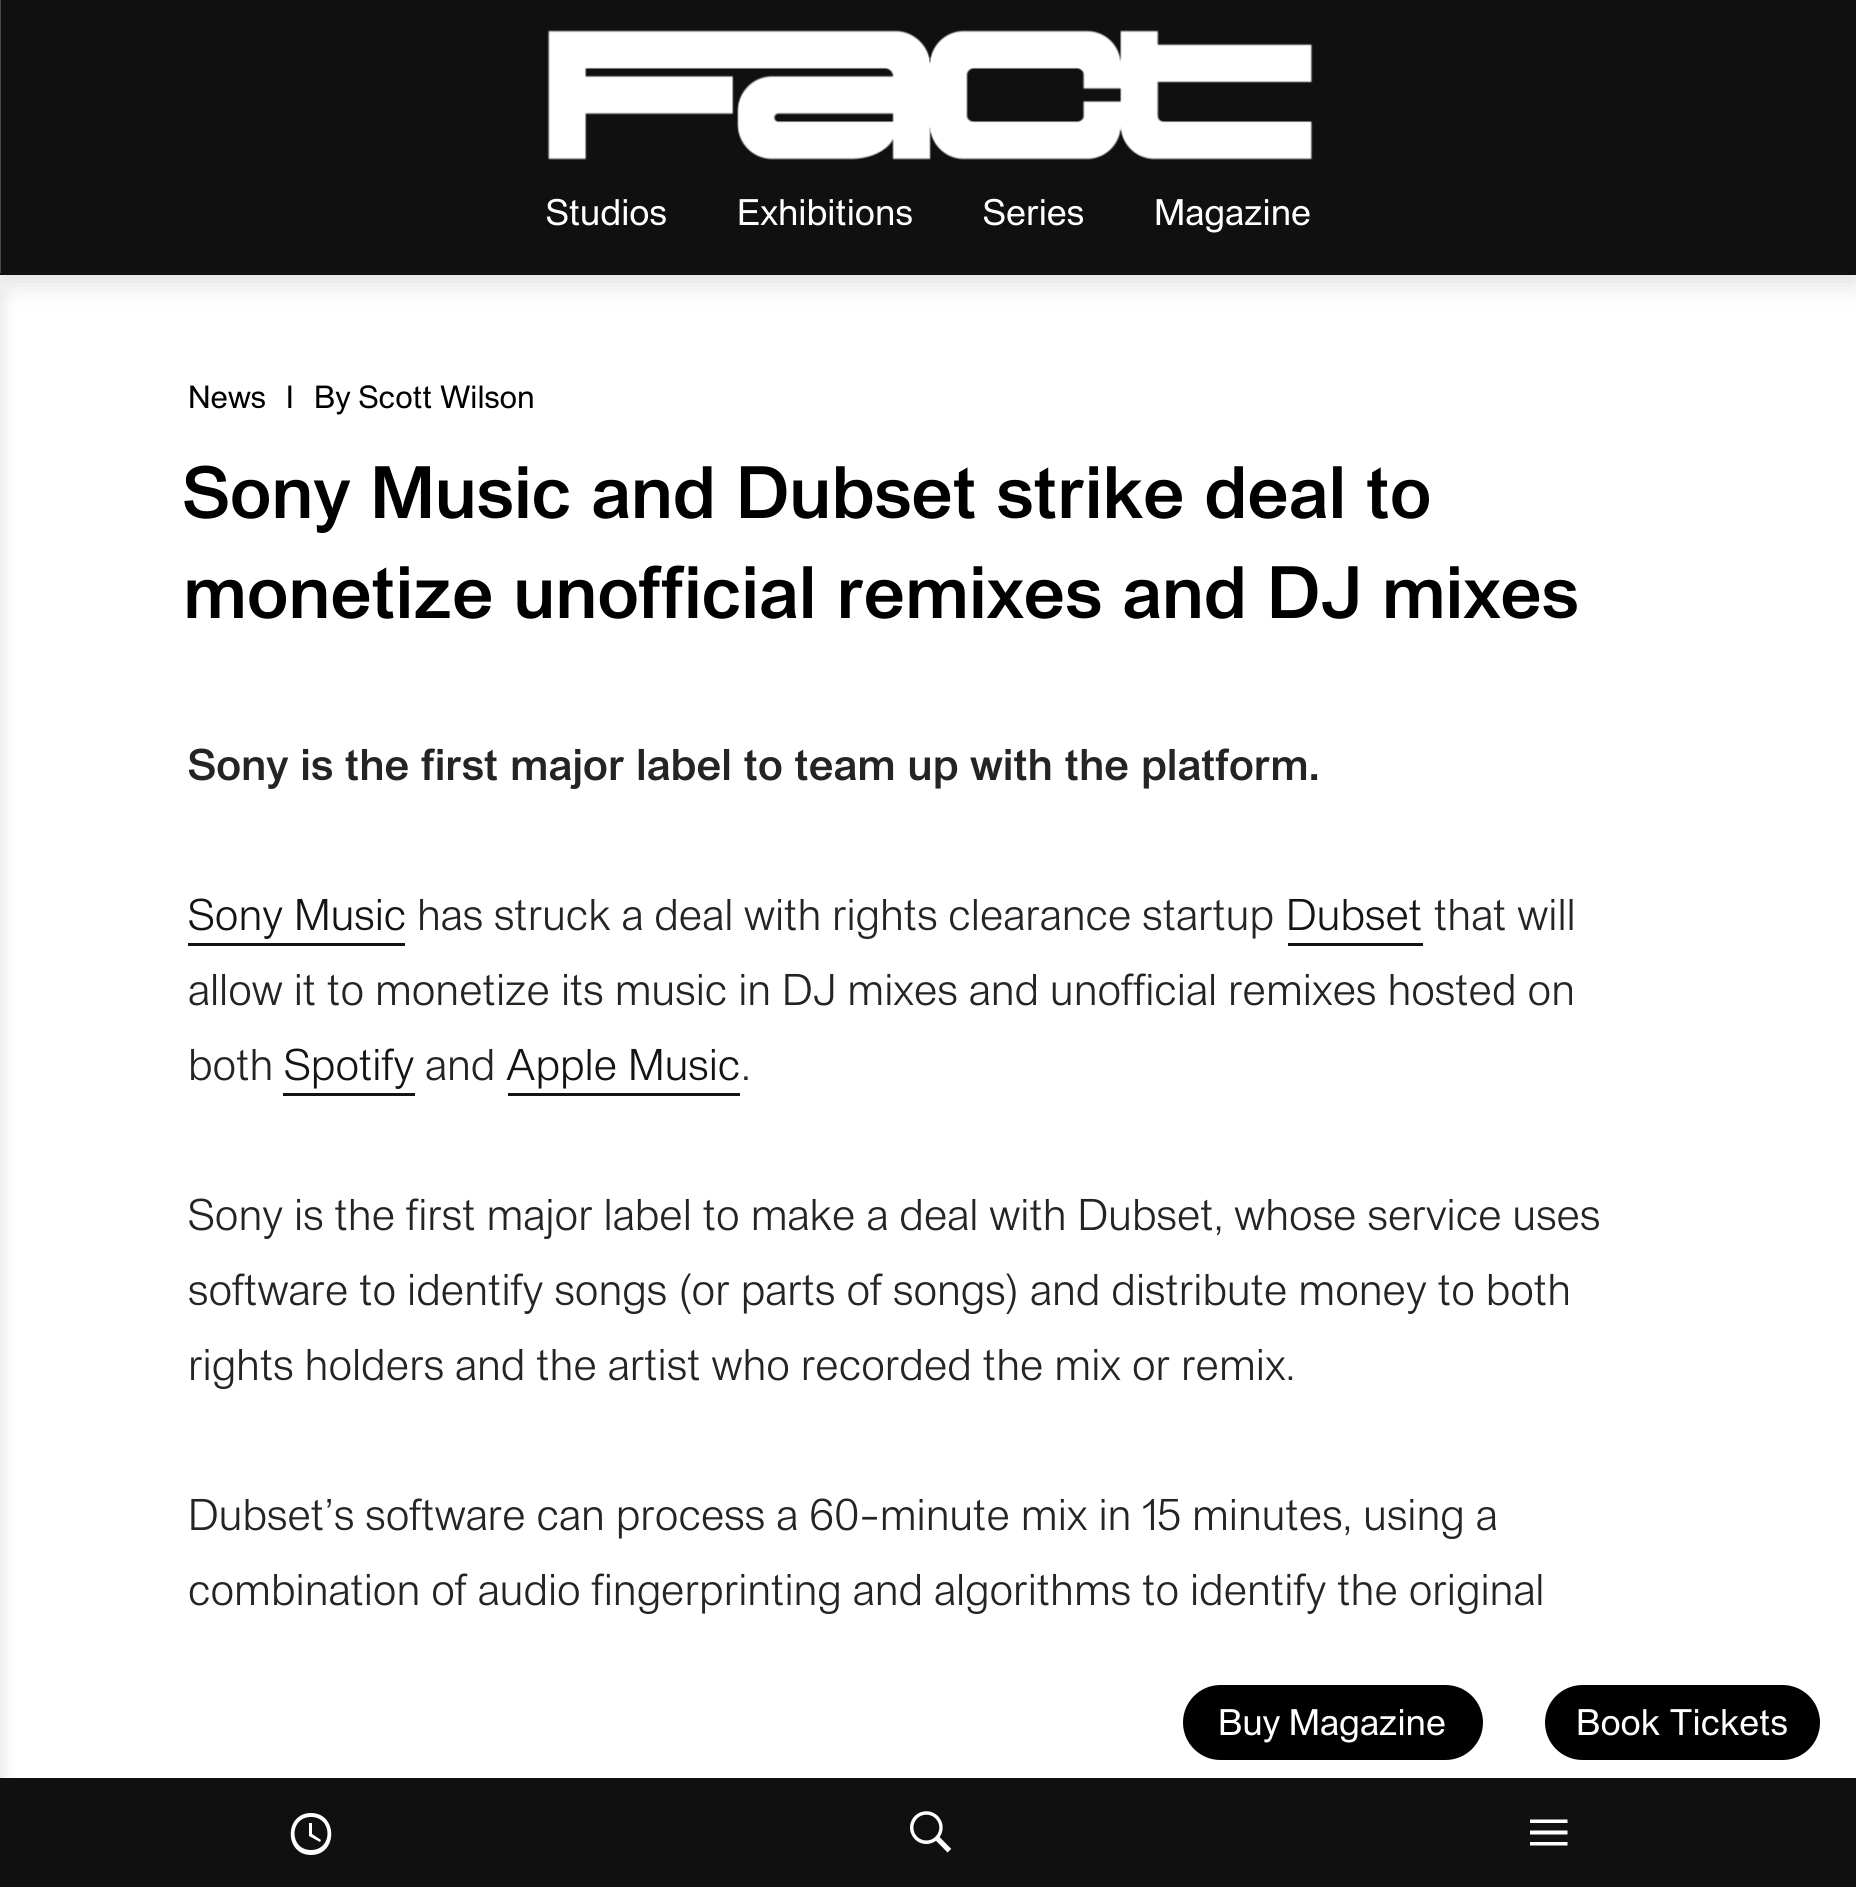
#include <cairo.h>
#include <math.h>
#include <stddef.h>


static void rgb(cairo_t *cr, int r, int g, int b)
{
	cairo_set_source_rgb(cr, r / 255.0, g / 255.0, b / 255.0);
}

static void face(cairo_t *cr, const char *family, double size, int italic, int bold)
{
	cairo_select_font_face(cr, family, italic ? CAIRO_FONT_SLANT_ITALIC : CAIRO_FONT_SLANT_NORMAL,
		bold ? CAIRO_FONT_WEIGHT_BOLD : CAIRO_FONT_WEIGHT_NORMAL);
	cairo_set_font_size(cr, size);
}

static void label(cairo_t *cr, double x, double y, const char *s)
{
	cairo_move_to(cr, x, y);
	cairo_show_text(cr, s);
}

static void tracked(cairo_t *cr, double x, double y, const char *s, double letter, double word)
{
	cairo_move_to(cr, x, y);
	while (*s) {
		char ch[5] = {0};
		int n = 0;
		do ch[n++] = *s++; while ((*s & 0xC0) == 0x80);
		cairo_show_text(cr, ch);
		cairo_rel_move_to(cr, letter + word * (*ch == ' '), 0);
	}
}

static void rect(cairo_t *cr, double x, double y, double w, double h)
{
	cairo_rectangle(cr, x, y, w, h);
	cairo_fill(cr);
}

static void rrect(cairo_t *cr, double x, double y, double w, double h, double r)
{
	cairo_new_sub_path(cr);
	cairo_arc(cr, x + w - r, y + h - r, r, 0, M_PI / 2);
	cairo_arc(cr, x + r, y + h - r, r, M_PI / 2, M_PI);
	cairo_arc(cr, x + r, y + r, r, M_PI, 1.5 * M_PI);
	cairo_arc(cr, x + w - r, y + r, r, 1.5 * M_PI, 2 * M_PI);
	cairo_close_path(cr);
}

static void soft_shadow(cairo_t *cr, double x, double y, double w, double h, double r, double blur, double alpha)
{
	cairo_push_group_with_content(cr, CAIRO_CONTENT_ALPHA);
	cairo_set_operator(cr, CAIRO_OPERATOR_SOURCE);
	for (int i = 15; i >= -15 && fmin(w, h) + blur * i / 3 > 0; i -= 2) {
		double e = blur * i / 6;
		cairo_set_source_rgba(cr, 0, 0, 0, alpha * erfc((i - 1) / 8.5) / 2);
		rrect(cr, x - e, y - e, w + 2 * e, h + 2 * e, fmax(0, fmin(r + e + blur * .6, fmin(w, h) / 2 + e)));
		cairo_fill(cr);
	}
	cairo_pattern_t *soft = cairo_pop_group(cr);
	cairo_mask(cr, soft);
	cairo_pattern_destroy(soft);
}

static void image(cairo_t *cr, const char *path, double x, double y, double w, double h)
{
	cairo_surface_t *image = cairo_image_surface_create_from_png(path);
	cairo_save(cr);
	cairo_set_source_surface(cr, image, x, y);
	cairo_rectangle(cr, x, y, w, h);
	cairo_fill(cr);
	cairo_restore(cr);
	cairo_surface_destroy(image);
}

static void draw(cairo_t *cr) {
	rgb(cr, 255, 255, 255);
	cairo_paint(cr);
	rgb(cr, 0, 0, 0);
	soft_shadow(cr, 0, 10, 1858, 275, 0, 12.5, 0.12);
	rgb(cr, 16, 16, 16);
	rect(cr, 0, 0, 1856, 275);
	rgb(cr, 70, 70, 70);
	rect(cr, 0, 0, 1, 273);
	rgb(cr, 0, 0, 0);
	soft_shadow(cr, -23, 293, 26, 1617, 0, 7.5, 0.1);
	image(cr, "image0.png", 547, 30, 766, 130);
	face(cr, "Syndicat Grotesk", 37.5, 0, 0);
	rgb(cr, 255, 255, 255);
	label(cr, 546, 225, "Studios");
	label(cr, 737, 225, "Exhibitions");
	label(cr, 983, 225, "Series");
	label(cr, 1154, 225, "Magazine");
	rgb(cr, 0, 0, 0);
	rrect(cr, 1183, 1685, 300, 75, 37.5);
	cairo_fill(cr);
	rgb(cr, 255, 255, 255);
	tracked(cr, 1218, 1735, "Buy Magazine", 0, -1);
	rgb(cr, 0, 0, 0);
	rrect(cr, 1545, 1685, 275, 75, 37.5);
	cairo_fill(cr);
	rgb(cr, 255, 255, 255);
	label(cr, 1576, 1735, "Book Tickets");
	face(cr, "Syndicat Grotesk", 32.5, 0, 0);
	rgb(cr, 0, 0, 0);
	label(cr, 188, 408, "News");
	label(cr, 286, 408, "I");
	label(cr, 314, 408, "By Scott Wilson");
	face(cr, "Syndicat Grotesk Medium", 75, 0, 0);
	label(cr, 183, 518, "Sony Music and Dubset strike deal to");
	label(cr, 183, 618, "monetize unofficial remixes and DJ mixes");
	face(cr, "Syndicat Grotesk Medium", 45, 0, 0);
	rgb(cr, 36, 36, 36);
	tracked(cr, 188, 780, "Sony is the first major label to team up with the platform.", 0, -0.1);
	face(cr, "Syndicat Grotesk Light", 45, 0, 0);
	rgb(cr, 20, 20, 20);
	label(cr, 188, 930, "Sony Music");
	rect(cr, 188, 943, 217, 3);
	rgb(cr, 36, 36, 36);
	tracked(cr, 417, 930, "has struck a deal with rights clearance startup", 0, -0.25);
	rgb(cr, 20, 20, 20);
	label(cr, 1286, 930, "Dubset");
	rect(cr, 1288, 943, 135, 3);
	rgb(cr, 36, 36, 36);
	label(cr, 1434, 930, "that will");
	label(cr, 188, 1005, "allow it to monetize its music in DJ mixes and unofficial remixes hosted on");
	label(cr, 188, 1080, "both");
	rgb(cr, 20, 20, 20);
	label(cr, 284, 1080, "Spotify");
	rect(cr, 283, 1093, 132, 3);
	rgb(cr, 36, 36, 36);
	label(cr, 425, 1080, "and");
	rgb(cr, 20, 20, 20);
	label(cr, 506, 1080, "Apple Music");
	rect(cr, 508, 1093, 232, 3);
	rgb(cr, 36, 36, 36);
	label(cr, 741, 1080, ".");
	label(cr, 188, 1230, "Sony is the first major label to make a deal with Dubset, whose service uses");
	label(cr, 188, 1305, "software to identify songs (or parts of songs) and distribute money to both");
	label(cr, 188, 1380, "rights holders and the artist who recorded the mix or remix.");
	label(cr, 188, 1530, "Dubset’s software can process a 60-minute mix in 15 minutes, using a");
	label(cr, 188, 1605, "combination of audio fingerprinting and algorithms to identify the original");
	rgb(cr, 16, 16, 16);
	rect(cr, 0, 1778, 1856, 109);
	rgb(cr, 255, 255, 255);
	cairo_new_path(cr);
	cairo_move_to(cr, 311, 1813);
	cairo_curve_to(cr, 338, 1813, 338, 1855, 311, 1855);
	cairo_curve_to(cr, 284, 1855, 284, 1813, 311, 1813);
	cairo_close_path(cr);
	cairo_move_to(cr, 311, 1850);
	cairo_curve_to(cr, 333, 1850, 333, 1817, 311, 1817);
	cairo_curve_to(cr, 289, 1817, 289, 1850, 311, 1850);
	cairo_close_path(cr);
	cairo_move_to(cr, 312, 1823);
	cairo_line_to(cr, 312, 1834);
	cairo_line_to(cr, 321, 1840);
	cairo_line_to(cr, 320, 1842);
	cairo_line_to(cr, 309, 1836);
	cairo_line_to(cr, 309, 1823);
	cairo_close_path(cr);
	cairo_fill(cr);
	image(cr, "image1.png", 910, 1811, 42, 42);
	cairo_new_path(cr);
	cairo_move_to(cr, 1530, 1834.5);
	cairo_line_to(cr, 1530, 1830.5);
	cairo_line_to(cr, 1567.5, 1830.5);
	cairo_line_to(cr, 1567.5, 1834.5);
	cairo_close_path(cr);
	cairo_move_to(cr, 1530, 1823);
	cairo_line_to(cr, 1530, 1819.5);
	cairo_line_to(cr, 1567.5, 1819.5);
	cairo_line_to(cr, 1567.5, 1823);
	cairo_close_path(cr);
	cairo_move_to(cr, 1530, 1845.5);
	cairo_line_to(cr, 1530, 1842);
	cairo_line_to(cr, 1567.5, 1842);
	cairo_line_to(cr, 1567.5, 1845.5);
	cairo_close_path(cr);
	cairo_fill(cr);
}

int main(void) {
	cairo_surface_t *surface = cairo_image_surface_create(CAIRO_FORMAT_RGB24, 1856, 1887);
	cairo_t *cr = cairo_create(surface);
	cairo_font_options_t *options = cairo_font_options_create();
	cairo_font_options_set_hint_metrics(options, CAIRO_HINT_METRICS_OFF);
	cairo_font_options_set_hint_style(options, CAIRO_HINT_STYLE_NONE);
	cairo_set_font_options(cr, options);
	cairo_set_miter_limit(cr, 4);
	draw(cr);
	cairo_surface_write_to_png(surface, "render.png");
	cairo_font_options_destroy(options);
	cairo_destroy(cr);
	cairo_surface_destroy(surface);
	return 0;
}
